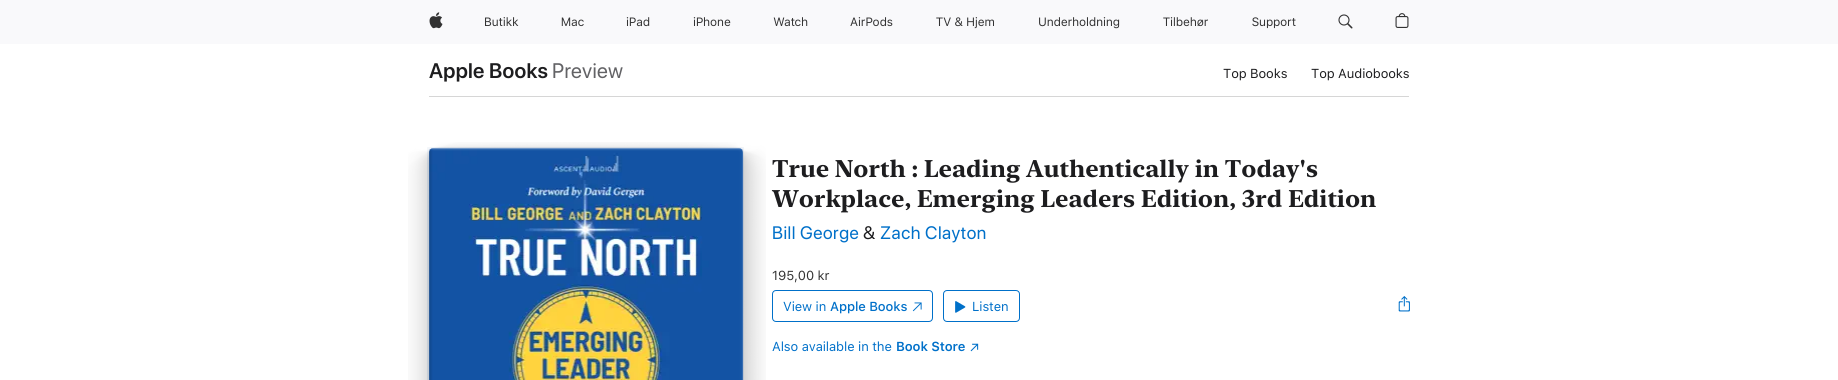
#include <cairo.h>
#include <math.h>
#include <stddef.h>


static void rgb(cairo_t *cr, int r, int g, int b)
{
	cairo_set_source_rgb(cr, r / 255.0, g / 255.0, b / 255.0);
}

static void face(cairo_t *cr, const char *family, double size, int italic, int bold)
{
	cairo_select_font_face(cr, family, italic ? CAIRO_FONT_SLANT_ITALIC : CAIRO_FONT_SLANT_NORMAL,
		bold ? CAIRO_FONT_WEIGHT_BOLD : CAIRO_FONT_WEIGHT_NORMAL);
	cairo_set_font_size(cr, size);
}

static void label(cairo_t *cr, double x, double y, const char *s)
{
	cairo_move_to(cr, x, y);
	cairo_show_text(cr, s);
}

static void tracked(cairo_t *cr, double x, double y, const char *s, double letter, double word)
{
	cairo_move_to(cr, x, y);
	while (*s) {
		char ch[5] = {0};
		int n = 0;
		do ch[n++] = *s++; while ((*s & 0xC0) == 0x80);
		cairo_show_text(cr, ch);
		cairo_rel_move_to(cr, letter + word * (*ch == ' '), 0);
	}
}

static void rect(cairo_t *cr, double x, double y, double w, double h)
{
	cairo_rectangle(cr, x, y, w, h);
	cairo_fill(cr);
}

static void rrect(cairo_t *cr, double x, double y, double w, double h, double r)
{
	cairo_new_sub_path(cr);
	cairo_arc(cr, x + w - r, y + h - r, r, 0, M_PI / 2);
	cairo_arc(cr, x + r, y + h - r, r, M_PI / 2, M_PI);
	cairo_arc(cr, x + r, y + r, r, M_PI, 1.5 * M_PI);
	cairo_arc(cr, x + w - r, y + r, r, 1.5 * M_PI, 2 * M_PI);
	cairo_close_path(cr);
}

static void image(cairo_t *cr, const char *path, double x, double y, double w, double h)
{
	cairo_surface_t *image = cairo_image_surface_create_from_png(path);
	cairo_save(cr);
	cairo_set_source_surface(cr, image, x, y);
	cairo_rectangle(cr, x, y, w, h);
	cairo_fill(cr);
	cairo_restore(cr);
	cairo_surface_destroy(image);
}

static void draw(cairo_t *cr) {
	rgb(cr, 255, 255, 255);
	cairo_paint(cr);
	rgb(cr, 249, 249, 251);
	rect(cr, 0, 0, 1838, 44);
	image(cr, "image0.png", 429, 12, 14, 17);
	image(cr, "image1.png", 485, 17, 34, 10);
	image(cr, "image2.png", 561, 17, 23, 10);
	image(cr, "image3.png", 626, 17, 24, 10);
	image(cr, "image4.png", 693, 17, 38, 10);
	image(cr, "image5.png", 773, 17, 35, 10);
	image(cr, "image6.png", 850, 17, 43, 10);
	image(cr, "image7.png", 936, 17, 58, 12);
	image(cr, "image8.png", 1039, 17, 81, 12);
	image(cr, "image9.png", 1163, 17, 45, 10);
	image(cr, "image10.png", 1252, 17, 44, 12);
	image(cr, "image11.png", 1338, 14, 15, 15);
	image(cr, "image12.png", 1395, 13, 14, 15);
	face(cr, "SF Pro Display SemiBold", 21, 0, 0);
	rgb(cr, 29, 29, 31);
	tracked(cr, 429, 78, "Apple Books", 0.25, 0);
	face(cr, "SF Pro Display", 21, 0, 0);
	rgb(cr, 99, 99, 102);
	tracked(cr, 552, 78, "Preview", 0.25, 0);
	face(cr, "SF Pro Text", 13, 0, 0);
	rgb(cr, 29, 29, 31);
	tracked(cr, 1223, 78, "Top Books", -0.1, 0);
	tracked(cr, 1311, 78, "Top Audiobooks", -0.1, 0);
	rgb(cr, 214, 214, 214);
	rect(cr, 429, 96, 980, 1);
	image(cr, "image13.png", 408, 142, 358, 238);
	image(cr, "image14.png", 427, 147, 317, 233);
	image(cr, "image15.png", 429, 148, 314, 232);
	image(cr, "image16.png", 429, 148, 314, 232);
	face(cr, "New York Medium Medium", 24, 0, 0);
	rgb(cr, 29, 29, 31);
	label(cr, 772, 177, "True North : Leading Authentically in Today's");
	label(cr, 772, 207, "Workplace, Emerging Leaders Edition, 3rd Edition");
	face(cr, "SF Pro Display", 18, 0, 0);
	rgb(cr, 0, 112, 201);
	tracked(cr, 772, 239, "Bill George", 0.5, 0);
	rgb(cr, 29, 29, 31);
	tracked(cr, 863, 239, "&", 0.5, 0);
	rgb(cr, 0, 112, 201);
	tracked(cr, 880, 239, "Zach Clayton", 0.5, 0);
	face(cr, "SF Pro Text", 13, 0, 0);
	rgb(cr, 51, 51, 51);
	tracked(cr, 772, 280, "195,00 kr", -0.1, 0);
	rrect(cr, 772.5, 290.5, 160, 31, 3.5);
	rgb(cr, 0, 112, 201);
	cairo_set_line_width(cr, 1);
	cairo_stroke(cr);
	tracked(cr, 783, 311, "View in", -0.1, 0);
	face(cr, "SF Pro Text Medium", 13, 0, 0);
	tracked(cr, 830, 311, "Apple Books", -0.1, 0);
	image(cr, "image17.png", 912, 302, 10, 10);
	rrect(cr, 943.5, 290.5, 76, 31, 3.5);
	cairo_stroke(cr);
	image(cr, "image18.png", 955, 301, 11, 12);
	face(cr, "SF Pro Text", 13, 0, 0);
	tracked(cr, 972, 311, "Listen", -0.1, 0);
	image(cr, "image19.png", 1398, 296, 12, 16);
	tracked(cr, 772, 351, "Also available in the", -0.1, 0);
	face(cr, "SF Pro Text SemiBold", 13, 0, 0);
	tracked(cr, 896, 351, "Book Store", -0.1, 0);
	image(cr, "image20.png", 970, 343, 9, 9);
}

int main(void) {
	cairo_surface_t *surface = cairo_image_surface_create(CAIRO_FORMAT_RGB24, 1838, 380);
	cairo_t *cr = cairo_create(surface);
	cairo_font_options_t *options = cairo_font_options_create();
	cairo_font_options_set_hint_metrics(options, CAIRO_HINT_METRICS_OFF);
	cairo_font_options_set_hint_style(options, CAIRO_HINT_STYLE_NONE);
	cairo_set_font_options(cr, options);
	cairo_set_miter_limit(cr, 4);
	draw(cr);
	cairo_surface_write_to_png(surface, "render.png");
	cairo_font_options_destroy(options);
	cairo_destroy(cr);
	cairo_surface_destroy(surface);
	return 0;
}
